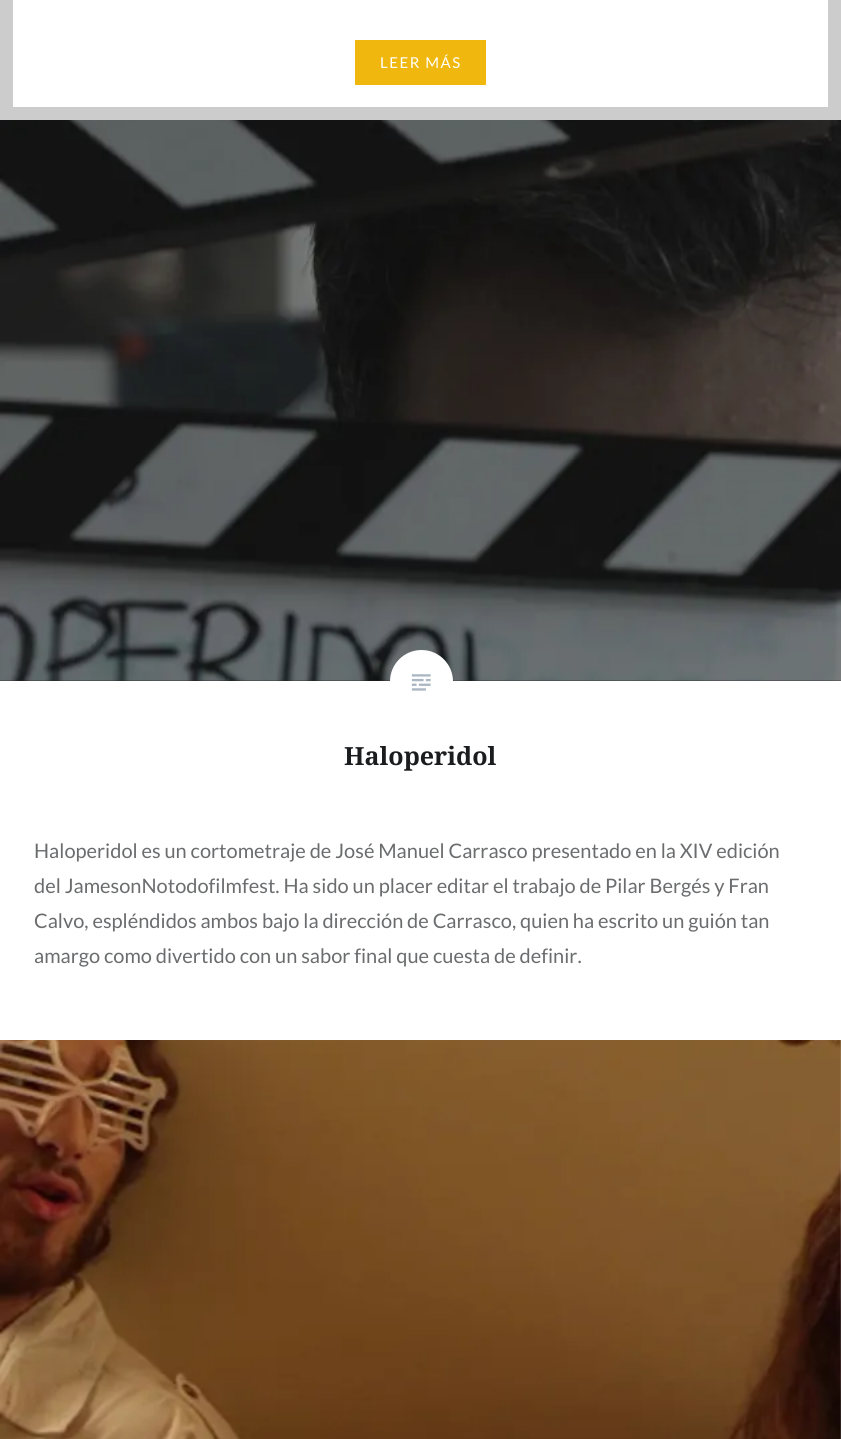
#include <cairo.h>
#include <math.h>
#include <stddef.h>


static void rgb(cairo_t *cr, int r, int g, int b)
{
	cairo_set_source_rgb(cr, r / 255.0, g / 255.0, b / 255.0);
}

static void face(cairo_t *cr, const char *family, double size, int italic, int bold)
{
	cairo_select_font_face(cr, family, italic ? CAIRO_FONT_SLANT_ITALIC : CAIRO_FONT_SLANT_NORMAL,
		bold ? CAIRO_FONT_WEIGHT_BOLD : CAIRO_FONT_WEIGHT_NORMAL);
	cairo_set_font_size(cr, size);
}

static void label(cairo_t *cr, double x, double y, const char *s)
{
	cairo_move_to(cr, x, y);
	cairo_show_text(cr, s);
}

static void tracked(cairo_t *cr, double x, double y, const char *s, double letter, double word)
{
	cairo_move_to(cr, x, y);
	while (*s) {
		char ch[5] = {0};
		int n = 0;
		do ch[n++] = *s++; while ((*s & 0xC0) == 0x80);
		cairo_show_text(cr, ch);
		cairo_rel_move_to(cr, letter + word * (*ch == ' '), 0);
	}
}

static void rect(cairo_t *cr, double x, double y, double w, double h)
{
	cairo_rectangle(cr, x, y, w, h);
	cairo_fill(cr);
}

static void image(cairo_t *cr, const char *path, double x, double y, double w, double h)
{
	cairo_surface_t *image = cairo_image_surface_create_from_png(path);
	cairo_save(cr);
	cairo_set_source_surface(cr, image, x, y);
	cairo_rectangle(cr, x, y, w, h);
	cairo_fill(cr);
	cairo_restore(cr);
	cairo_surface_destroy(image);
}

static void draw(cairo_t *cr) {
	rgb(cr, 255, 255, 255);
	cairo_paint(cr);
	cairo_rectangle(cr, 6.5, -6.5, 828, 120);
	rgb(cr, 204, 204, 204);
	cairo_set_line_width(cr, 13);
	cairo_stroke(cr);
	rgb(cr, 240, 184, 14);
	rect(cr, 355, 40, 131, 45);
	face(cr, "Lato", 15, 0, 0);
	rgb(cr, 255, 255, 255);
	tracked(cr, 380, 68, "LEER MÁS", 1.5, 0);
	rgb(cr, 36, 38, 41);
	rect(cr, 0, 680, 841, 1);
	image(cr, "image0.png", 0, 120, 841, 561);
	rgb(cr, 255, 255, 255);
	cairo_arc(cr, 421.5, 681.5, 31.5, 0, 2 * M_PI);
	cairo_fill(cr);
	image(cr, "image1.png", 411, 674, 20, 17);
	face(cr, "Noto Serif", 25, 0, 1);
	rgb(cr, 26, 28, 30);
	label(cr, 344, 765, "Haloperidol");
	face(cr, "Lato", 20, 0, 0);
	rgb(cr, 106, 108, 110);
	label(cr, 34, 858, "Haloperidol es un cortometraje de José Manuel Carrasco presentado en la XIV edición");
	label(cr, 34, 893, "del JamesonNotodofilmfest. Ha sido un placer editar el trabajo de Pilar Bergés y Fran");
	label(cr, 34, 928, "Calvo, espléndidos ambos bajo la dirección de Carrasco, quien ha escrito un guión tan");
	label(cr, 34, 963, "amargo como divertido con un sabor final que cuesta de definir.");
	image(cr, "image2.png", 0, 1040, 841, 399);
}

int main(void) {
	cairo_surface_t *surface = cairo_image_surface_create(CAIRO_FORMAT_RGB24, 841, 1439);
	cairo_t *cr = cairo_create(surface);
	cairo_font_options_t *options = cairo_font_options_create();
	cairo_font_options_set_hint_metrics(options, CAIRO_HINT_METRICS_OFF);
	cairo_font_options_set_hint_style(options, CAIRO_HINT_STYLE_NONE);
	cairo_set_font_options(cr, options);
	cairo_set_miter_limit(cr, 4);
	draw(cr);
	cairo_surface_write_to_png(surface, "render.png");
	cairo_font_options_destroy(options);
	cairo_destroy(cr);
	cairo_surface_destroy(surface);
	return 0;
}
